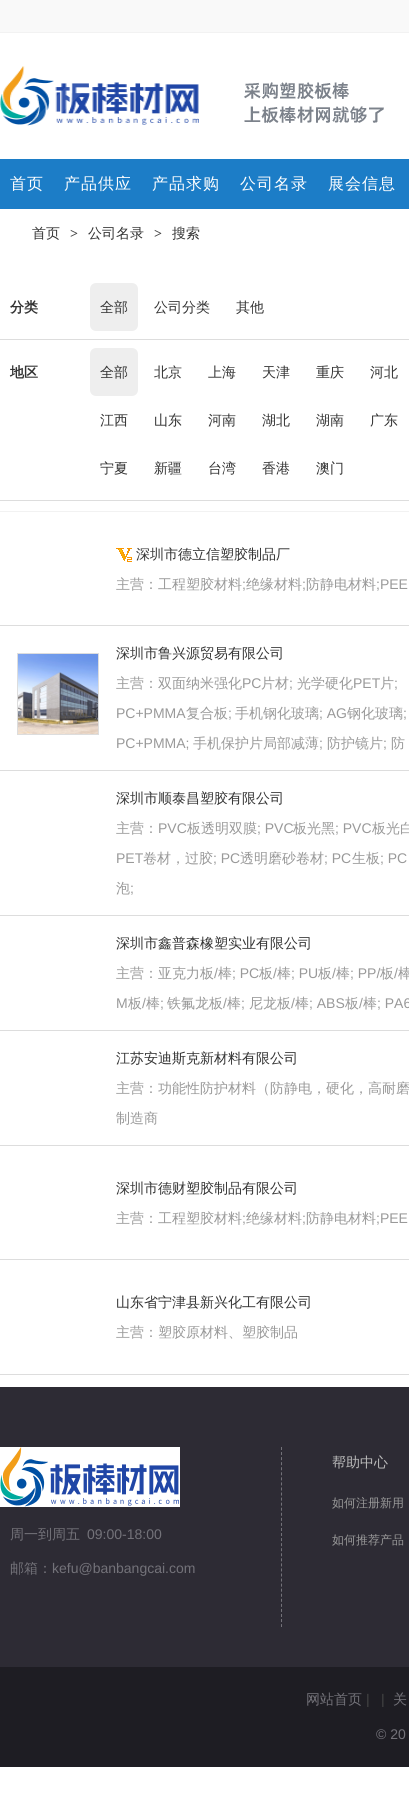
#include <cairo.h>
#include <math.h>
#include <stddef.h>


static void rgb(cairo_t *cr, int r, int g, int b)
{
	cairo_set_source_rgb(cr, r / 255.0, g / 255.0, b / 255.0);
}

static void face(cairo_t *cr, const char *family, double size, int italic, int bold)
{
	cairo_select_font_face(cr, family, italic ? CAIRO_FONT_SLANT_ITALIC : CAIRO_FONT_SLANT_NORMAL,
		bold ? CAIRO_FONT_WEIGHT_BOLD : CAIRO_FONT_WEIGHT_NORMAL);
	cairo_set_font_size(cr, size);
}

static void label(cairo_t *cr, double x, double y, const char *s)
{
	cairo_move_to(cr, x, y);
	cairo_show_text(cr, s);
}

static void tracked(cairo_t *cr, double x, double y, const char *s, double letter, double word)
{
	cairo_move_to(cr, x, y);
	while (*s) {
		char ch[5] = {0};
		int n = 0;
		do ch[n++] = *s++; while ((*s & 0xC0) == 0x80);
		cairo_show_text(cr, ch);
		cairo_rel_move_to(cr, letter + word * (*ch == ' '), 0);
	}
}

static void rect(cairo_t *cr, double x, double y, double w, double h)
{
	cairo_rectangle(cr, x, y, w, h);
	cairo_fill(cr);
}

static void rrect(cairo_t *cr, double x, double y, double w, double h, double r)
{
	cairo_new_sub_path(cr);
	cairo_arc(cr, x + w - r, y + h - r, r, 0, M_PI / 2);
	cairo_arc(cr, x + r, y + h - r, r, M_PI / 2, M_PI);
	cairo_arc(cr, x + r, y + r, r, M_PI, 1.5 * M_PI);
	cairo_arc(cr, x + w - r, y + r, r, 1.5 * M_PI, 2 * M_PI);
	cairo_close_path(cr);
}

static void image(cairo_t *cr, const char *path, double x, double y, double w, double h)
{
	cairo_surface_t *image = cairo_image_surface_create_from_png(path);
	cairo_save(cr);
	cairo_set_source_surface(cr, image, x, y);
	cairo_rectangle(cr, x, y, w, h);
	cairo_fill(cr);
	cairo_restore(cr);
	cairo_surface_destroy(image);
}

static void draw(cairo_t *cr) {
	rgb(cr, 255, 255, 255);
	cairo_paint(cr);
	rgb(cr, 249, 249, 249);
	rect(cr, 0, 0, 409, 32);
	rgb(cr, 242, 242, 242);
	rect(cr, 0, 32, 409, 1);
	image(cr, "image0.png", 0, 66, 199, 60);
	cairo_save(cr);
	cairo_rectangle(cr, 0, 56, 200, 80);
	cairo_clip(cr);
	cairo_set_source_rgba(cr, 1, 1, 1, 0.1);
	cairo_new_path(cr);
	cairo_move_to(cr, 24, 129);
	cairo_line_to(cr, 165, -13);
	cairo_line_to(cr, 176, -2);
	cairo_line_to(cr, 35, 140);
	cairo_close_path(cr);
	cairo_fill(cr);
	cairo_restore(cr);
	image(cr, "image1.png", 244, 82, 140, 41);
	rgb(cr, 28, 125, 199);
	rect(cr, 0, 159, 409, 50);
	face(cr, "WenQuanYi Zen Hei Medium", 16, 0, 0);
	rgb(cr, 255, 255, 255);
	tracked(cr, 10, 189, "首页", 1, 0);
	tracked(cr, 64, 189, "产品供应", 1, 0);
	tracked(cr, 152, 189, "产品求购", 1, 0);
	tracked(cr, 240, 189, "公司名录", 1, 0);
	tracked(cr, 328, 189, "展会信息", 1, 0);
	face(cr, "WenQuanYi Zen Hei Medium", 14, 0, 0);
	rgb(cr, 51, 51, 51);
	label(cr, 32, 238, "首页");
	face(cr, "Liberation Serif", 14, 0, 1);
	rgb(cr, 68, 68, 68);
	label(cr, 70, 238, ">");
	face(cr, "WenQuanYi Zen Hei Medium", 14, 0, 0);
	rgb(cr, 51, 51, 51);
	label(cr, 88, 238, "公司名录");
	face(cr, "Liberation Serif", 14, 0, 1);
	rgb(cr, 68, 68, 68);
	label(cr, 154, 238, ">");
	face(cr, "WenQuanYi Zen Hei Medium", 14, 0, 0);
	rgb(cr, 51, 51, 51);
	label(cr, 172, 238, "搜索");
	rgb(cr, 242, 242, 242);
	rect(cr, 0, 511, 409, 1);
	rgb(cr, 221, 221, 221);
	rect(cr, 0, 339, 409, 1);
	face(cr, "WenQuanYi Zen Hei", 14, 0, 1);
	rgb(cr, 51, 51, 51);
	label(cr, 10, 312, "分类");
	rgb(cr, 238, 238, 238);
	rrect(cr, 90, 283, 48, 48, 6);
	cairo_fill(cr);
	face(cr, "WenQuanYi Zen Hei Medium", 14, 0, 0);
	rgb(cr, 51, 51, 51);
	label(cr, 100, 312, "全部");
	label(cr, 154, 312, "公司分类");
	label(cr, 236, 312, "其他");
	rgb(cr, 221, 221, 221);
	rect(cr, 0, 500, 409, 1);
	face(cr, "WenQuanYi Zen Hei", 14, 0, 1);
	rgb(cr, 51, 51, 51);
	label(cr, 10, 377, "地区");
	rgb(cr, 238, 238, 238);
	rrect(cr, 90, 348, 48, 48, 6);
	cairo_fill(cr);
	face(cr, "WenQuanYi Zen Hei Medium", 14, 0, 0);
	rgb(cr, 51, 51, 51);
	label(cr, 100, 377, "全部");
	label(cr, 154, 377, "北京");
	label(cr, 208, 377, "上海");
	label(cr, 262, 377, "天津");
	label(cr, 316, 377, "重庆");
	label(cr, 370, 377, "河北");
	label(cr, 100, 425, "江西");
	label(cr, 154, 425, "山东");
	label(cr, 208, 425, "河南");
	label(cr, 262, 425, "湖北");
	label(cr, 316, 425, "湖南");
	label(cr, 370, 425, "广东");
	label(cr, 100, 473, "宁夏");
	label(cr, 154, 473, "新疆");
	label(cr, 208, 473, "台湾");
	label(cr, 262, 473, "香港");
	label(cr, 316, 473, "澳门");
	rgb(cr, 221, 221, 221);
	rect(cr, 0, 625, 409, 1);
	image(cr, "image2.png", 116, 548, 16, 14);
	rgb(cr, 51, 51, 51);
	label(cr, 136, 559, "深圳市德立信塑胶制品厂");
	rgb(cr, 153, 153, 153);
	label(cr, 116, 589, "主营：工程塑胶材料");
	face(cr, "Liberation Sans", 14, 0, 0);
	label(cr, 242, 589, ";");
	face(cr, "WenQuanYi Zen Hei Medium", 14, 0, 0);
	label(cr, 246, 589, "绝缘材料");
	face(cr, "Liberation Sans", 14, 0, 0);
	label(cr, 302, 589, ";");
	face(cr, "WenQuanYi Zen Hei Medium", 14, 0, 0);
	label(cr, 306, 589, "防静电材料");
	face(cr, "Liberation Sans", 14, 0, 0);
	label(cr, 376, 589, ";PEE");
	rgb(cr, 221, 221, 221);
	rect(cr, 0, 770, 409, 1);
	cairo_rectangle(cr, 17.5, 653.5, 81, 81);
	cairo_set_line_width(cr, 1);
	cairo_stroke(cr);
	image(cr, "image3.png", 18, 654, 80, 80);
	face(cr, "WenQuanYi Zen Hei Medium", 14, 0, 0);
	rgb(cr, 51, 51, 51);
	label(cr, 116, 658, "深圳市鲁兴源贸易有限公司");
	rgb(cr, 153, 153, 153);
	label(cr, 116, 688, "主营：双面纳米强化");
	face(cr, "Liberation Sans", 14, 0, 0);
	label(cr, 242, 688, "PC");
	face(cr, "WenQuanYi Zen Hei Medium", 14, 0, 0);
	label(cr, 261, 688, "片材");
	face(cr, "Liberation Sans", 14, 0, 0);
	label(cr, 289, 688, ";");
	face(cr, "WenQuanYi Zen Hei Medium", 14, 0, 0);
	label(cr, 297, 688, "光学硬化");
	face(cr, "Liberation Sans", 14, 0, 0);
	label(cr, 353, 688, "PET");
	face(cr, "WenQuanYi Zen Hei Medium", 14, 0, 0);
	label(cr, 380, 688, "片");
	face(cr, "Liberation Sans", 14, 0, 0);
	label(cr, 394, 688, ";");
	label(cr, 116, 718, "PC+PMMA");
	face(cr, "WenQuanYi Zen Hei Medium", 14, 0, 0);
	label(cr, 186, 718, "复合板");
	face(cr, "Liberation Sans", 14, 0, 0);
	label(cr, 228, 718, ";");
	face(cr, "WenQuanYi Zen Hei Medium", 14, 0, 0);
	label(cr, 235, 718, "手机钢化玻璃");
	face(cr, "Liberation Sans", 14, 0, 0);
	label(cr, 319, 718, "; AG");
	face(cr, "WenQuanYi Zen Hei Medium", 14, 0, 0);
	label(cr, 347, 718, "钢化玻璃");
	face(cr, "Liberation Sans", 14, 0, 0);
	label(cr, 403, 718, ";");
	label(cr, 116, 748, "PC+PMMA;");
	face(cr, "WenQuanYi Zen Hei Medium", 14, 0, 0);
	label(cr, 193, 748, "手机保护片局部减薄");
	face(cr, "Liberation Sans", 14, 0, 0);
	label(cr, 319, 748, ";");
	face(cr, "WenQuanYi Zen Hei Medium", 14, 0, 0);
	label(cr, 327, 748, "防护镜片");
	face(cr, "Liberation Sans", 14, 0, 0);
	label(cr, 383, 748, ";");
	face(cr, "WenQuanYi Zen Hei Medium", 14, 0, 0);
	label(cr, 391, 748, "防");
	rgb(cr, 221, 221, 221);
	rect(cr, 0, 915, 409, 1);
	rgb(cr, 51, 51, 51);
	label(cr, 116, 803, "深圳市顺泰昌塑胶有限公司");
	rgb(cr, 153, 153, 153);
	label(cr, 116, 833, "主营：");
	face(cr, "Liberation Sans", 14, 0, 0);
	label(cr, 158, 833, "PVC");
	face(cr, "WenQuanYi Zen Hei Medium", 14, 0, 0);
	label(cr, 187, 833, "板透明双膜");
	face(cr, "Liberation Sans", 14, 0, 0);
	label(cr, 257, 833, "; PVC");
	face(cr, "WenQuanYi Zen Hei Medium", 14, 0, 0);
	label(cr, 293, 833, "板光黑");
	face(cr, "Liberation Sans", 14, 0, 0);
	label(cr, 335, 833, "; PVC");
	face(cr, "WenQuanYi Zen Hei Medium", 14, 0, 0);
	label(cr, 372, 833, "板光白");
	face(cr, "Liberation Sans", 14, 0, 0);
	label(cr, 116, 863, "PET");
	face(cr, "WenQuanYi Zen Hei Medium", 14, 0, 0);
	label(cr, 143, 863, "卷材，过胶");
	face(cr, "Liberation Sans", 14, 0, 0);
	label(cr, 213, 863, "; PC");
	face(cr, "WenQuanYi Zen Hei Medium", 14, 0, 0);
	label(cr, 240, 863, "透明磨砂卷材");
	face(cr, "Liberation Sans", 14, 0, 0);
	label(cr, 324, 863, "; PC");
	face(cr, "WenQuanYi Zen Hei Medium", 14, 0, 0);
	label(cr, 352, 863, "生板");
	face(cr, "Liberation Sans", 14, 0, 0);
	label(cr, 380, 863, "; PC");
	face(cr, "WenQuanYi Zen Hei Medium", 14, 0, 0);
	label(cr, 116, 893, "泡");
	face(cr, "Liberation Sans", 14, 0, 0);
	label(cr, 130, 893, ";");
	rgb(cr, 221, 221, 221);
	rect(cr, 0, 1030, 409, 1);
	face(cr, "WenQuanYi Zen Hei Medium", 14, 0, 0);
	rgb(cr, 51, 51, 51);
	label(cr, 116, 948, "深圳市鑫普森橡塑实业有限公司");
	rgb(cr, 153, 153, 153);
	label(cr, 116, 978, "主营：亚克力板");
	face(cr, "Liberation Sans", 14, 0, 0);
	label(cr, 214, 978, "/");
	face(cr, "WenQuanYi Zen Hei Medium", 14, 0, 0);
	label(cr, 218, 978, "棒");
	face(cr, "Liberation Sans", 14, 0, 0);
	label(cr, 232, 978, "; PC");
	face(cr, "WenQuanYi Zen Hei Medium", 14, 0, 0);
	label(cr, 259, 978, "板");
	face(cr, "Liberation Sans", 14, 0, 0);
	label(cr, 273, 978, "/");
	face(cr, "WenQuanYi Zen Hei Medium", 14, 0, 0);
	label(cr, 277, 978, "棒");
	face(cr, "Liberation Sans", 14, 0, 0);
	label(cr, 291, 978, "; PU");
	face(cr, "WenQuanYi Zen Hei Medium", 14, 0, 0);
	label(cr, 318, 978, "板");
	face(cr, "Liberation Sans", 14, 0, 0);
	label(cr, 332, 978, "/");
	face(cr, "WenQuanYi Zen Hei Medium", 14, 0, 0);
	label(cr, 336, 978, "棒");
	face(cr, "Liberation Sans", 14, 0, 0);
	label(cr, 350, 978, "; PP/");
	face(cr, "WenQuanYi Zen Hei Medium", 14, 0, 0);
	label(cr, 380, 978, "板");
	face(cr, "Liberation Sans", 14, 0, 0);
	label(cr, 394, 978, "/");
	face(cr, "WenQuanYi Zen Hei Medium", 14, 0, 0);
	label(cr, 398, 978, "棒");
	face(cr, "Liberation Sans", 14, 0, 0);
	label(cr, 116, 1008, "M");
	face(cr, "WenQuanYi Zen Hei Medium", 14, 0, 0);
	label(cr, 128, 1008, "板");
	face(cr, "Liberation Sans", 14, 0, 0);
	label(cr, 142, 1008, "/");
	face(cr, "WenQuanYi Zen Hei Medium", 14, 0, 0);
	label(cr, 146, 1008, "棒");
	face(cr, "Liberation Sans", 14, 0, 0);
	label(cr, 160, 1008, ";");
	face(cr, "WenQuanYi Zen Hei Medium", 14, 0, 0);
	label(cr, 167, 1008, "铁氟龙板");
	face(cr, "Liberation Sans", 14, 0, 0);
	label(cr, 223, 1008, "/");
	face(cr, "WenQuanYi Zen Hei Medium", 14, 0, 0);
	label(cr, 227, 1008, "棒");
	face(cr, "Liberation Sans", 14, 0, 0);
	label(cr, 241, 1008, ";");
	face(cr, "WenQuanYi Zen Hei Medium", 14, 0, 0);
	label(cr, 249, 1008, "尼龙板");
	face(cr, "Liberation Sans", 14, 0, 0);
	label(cr, 291, 1008, "/");
	face(cr, "WenQuanYi Zen Hei Medium", 14, 0, 0);
	label(cr, 295, 1008, "棒");
	face(cr, "Liberation Sans", 14, 0, 0);
	label(cr, 309, 1008, "; ABS");
	face(cr, "WenQuanYi Zen Hei Medium", 14, 0, 0);
	label(cr, 345, 1008, "板");
	face(cr, "Liberation Sans", 14, 0, 0);
	label(cr, 359, 1008, "/");
	face(cr, "WenQuanYi Zen Hei Medium", 14, 0, 0);
	label(cr, 363, 1008, "棒");
	face(cr, "Liberation Sans", 14, 0, 0);
	label(cr, 377, 1008, "; PA6");
	rgb(cr, 221, 221, 221);
	rect(cr, 0, 1145, 409, 1);
	face(cr, "WenQuanYi Zen Hei Medium", 14, 0, 0);
	rgb(cr, 51, 51, 51);
	label(cr, 116, 1063, "江苏安迪斯克新材料有限公司");
	rgb(cr, 153, 153, 153);
	label(cr, 116, 1093, "主营：功能性防护材料（防静电，硬化，高耐磨");
	label(cr, 116, 1123, "制造商");
	rgb(cr, 221, 221, 221);
	rect(cr, 0, 1259, 409, 1);
	rgb(cr, 51, 51, 51);
	label(cr, 116, 1193, "深圳市德财塑胶制品有限公司");
	rgb(cr, 153, 153, 153);
	label(cr, 116, 1223, "主营：工程塑胶材料");
	face(cr, "Liberation Sans", 14, 0, 0);
	label(cr, 242, 1223, ";");
	face(cr, "WenQuanYi Zen Hei Medium", 14, 0, 0);
	label(cr, 246, 1223, "绝缘材料");
	face(cr, "Liberation Sans", 14, 0, 0);
	label(cr, 302, 1223, ";");
	face(cr, "WenQuanYi Zen Hei Medium", 14, 0, 0);
	label(cr, 306, 1223, "防静电材料");
	face(cr, "Liberation Sans", 14, 0, 0);
	label(cr, 376, 1223, ";PEE");
	rgb(cr, 221, 221, 221);
	rect(cr, 0, 1374, 409, 1);
	face(cr, "WenQuanYi Zen Hei Medium", 14, 0, 0);
	rgb(cr, 51, 51, 51);
	label(cr, 116, 1307, "山东省宁津县新兴化工有限公司");
	rgb(cr, 153, 153, 153);
	label(cr, 116, 1337, "主营：塑胶原材料、塑胶制品");
	rgb(cr, 45, 43, 52);
	rect(cr, 0, 1387, 409, 280);
	cairo_new_path(cr);
	cairo_move_to(cr, 281.5, 1447);
	cairo_line_to(cr, 281.5, 1627);
	rgb(cr, 115, 114, 121);
	cairo_set_dash(cr, (double[]){3, 2.06}, 2, 0);
	cairo_stroke(cr);
	rgb(cr, 187, 187, 187);
	label(cr, 332, 1467, "帮助中心");
	face(cr, "WenQuanYi Zen Hei Medium", 12, 0, 0);
	rgb(cr, 153, 153, 153);
	label(cr, 332, 1507, "如何注册新用");
	label(cr, 332, 1544, "如何推荐产品");
	image(cr, "image4.png", 0, 1447, 180, 60);
	face(cr, "WenQuanYi Zen Hei Medium", 14, 0, 0);
	rgb(cr, 115, 114, 121);
	label(cr, 10, 1539, "周一到周五");
	face(cr, "Liberation Sans", 14, 0, 0);
	label(cr, 87, 1539, "09:00-18:00");
	face(cr, "WenQuanYi Zen Hei Medium", 14, 0, 0);
	label(cr, 10, 1573, "邮箱：");
	face(cr, "Liberation Sans", 14, 0, 0);
	label(cr, 52, 1573, "kefu@banbangcai.com");
	rgb(cr, 30, 29, 35);
	rect(cr, 0, 1667, 409, 100);
	face(cr, "WenQuanYi Zen Hei Medium", 14, 0, 0);
	rgb(cr, 115, 114, 121);
	label(cr, 306, 1704, "网站首页");
	face(cr, "Liberation Sans", 14, 0, 0);
	rgb(cr, 68, 68, 68);
	label(cr, 366, 1704, "|");
	label(cr, 381, 1704, "|");
	face(cr, "WenQuanYi Zen Hei Medium", 14, 0, 0);
	rgb(cr, 115, 114, 121);
	label(cr, 393, 1704, "关");
	face(cr, "Liberation Sans", 14, 0, 0);
	label(cr, 376, 1739, "© 20");
}

int main(void) {
	cairo_surface_t *surface = cairo_image_surface_create(CAIRO_FORMAT_RGB24, 409, 1806);
	cairo_t *cr = cairo_create(surface);
	cairo_font_options_t *options = cairo_font_options_create();
	cairo_font_options_set_hint_metrics(options, CAIRO_HINT_METRICS_OFF);
	cairo_font_options_set_hint_style(options, CAIRO_HINT_STYLE_NONE);
	cairo_set_font_options(cr, options);
	cairo_set_miter_limit(cr, 4);
	draw(cr);
	cairo_surface_write_to_png(surface, "render.png");
	cairo_font_options_destroy(options);
	cairo_destroy(cr);
	cairo_surface_destroy(surface);
	return 0;
}
